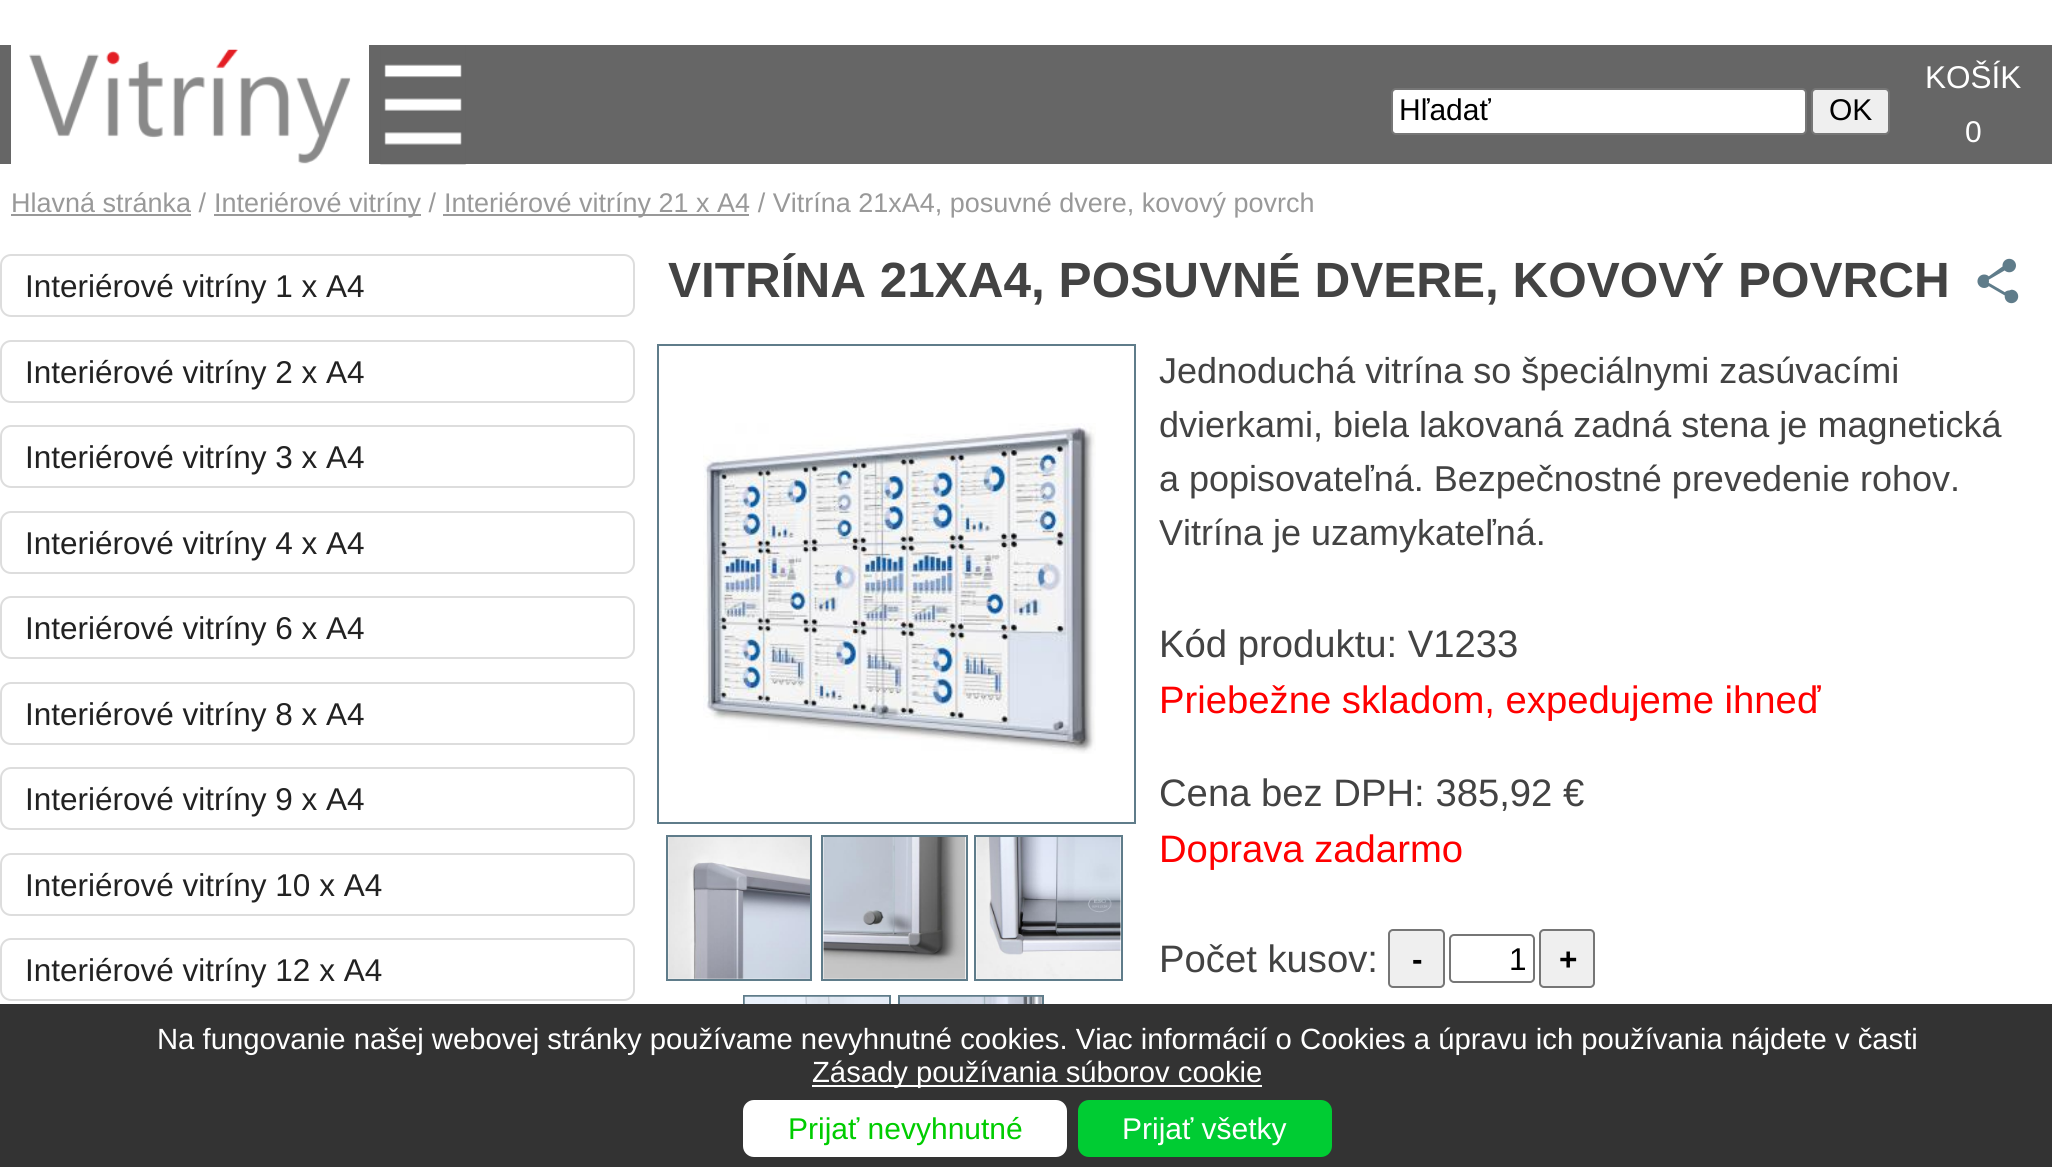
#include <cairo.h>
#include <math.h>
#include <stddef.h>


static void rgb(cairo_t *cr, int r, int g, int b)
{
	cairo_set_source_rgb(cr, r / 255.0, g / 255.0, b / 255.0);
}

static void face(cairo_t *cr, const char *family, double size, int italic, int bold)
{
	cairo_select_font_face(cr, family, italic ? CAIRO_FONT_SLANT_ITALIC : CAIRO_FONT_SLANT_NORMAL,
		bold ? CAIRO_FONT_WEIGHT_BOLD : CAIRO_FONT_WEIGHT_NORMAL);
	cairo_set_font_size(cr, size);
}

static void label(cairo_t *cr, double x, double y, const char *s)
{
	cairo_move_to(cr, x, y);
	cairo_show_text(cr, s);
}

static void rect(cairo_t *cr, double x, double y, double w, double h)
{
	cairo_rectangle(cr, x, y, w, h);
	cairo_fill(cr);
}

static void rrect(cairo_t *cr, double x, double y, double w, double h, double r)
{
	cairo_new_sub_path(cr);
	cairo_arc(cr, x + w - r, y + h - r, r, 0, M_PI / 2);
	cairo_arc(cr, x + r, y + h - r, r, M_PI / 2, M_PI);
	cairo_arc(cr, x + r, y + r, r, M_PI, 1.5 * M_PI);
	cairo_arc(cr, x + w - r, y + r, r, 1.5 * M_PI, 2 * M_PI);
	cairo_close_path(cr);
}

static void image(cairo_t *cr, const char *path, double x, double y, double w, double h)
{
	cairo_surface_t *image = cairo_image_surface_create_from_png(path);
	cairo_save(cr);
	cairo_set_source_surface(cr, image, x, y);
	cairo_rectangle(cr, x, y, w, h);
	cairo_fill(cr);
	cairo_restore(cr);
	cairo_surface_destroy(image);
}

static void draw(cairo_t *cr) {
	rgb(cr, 255, 255, 255);
	cairo_paint(cr);
	rgb(cr, 102, 102, 102);
	rect(cr, 0, 45, 2052, 119);
	rgb(cr, 255, 255, 255);
	rect(cr, 11, 45, 358, 119);
	image(cr, "image0.png", 29, 49, 322, 115);
	image(cr, "image1.png", 380, 45, 86, 120);
	rrect(cr, 1392, 89, 414, 45, 4);
	cairo_fill_preserve(cr);
	rgb(cr, 118, 118, 118);
	cairo_stroke(cr);
	face(cr, "Liberation Sans", 30, 0, 0);
	rgb(cr, 0, 0, 0);
	label(cr, 1399, 120, "Hľadať");
	rgb(cr, 239, 239, 239);
	rrect(cr, 1812, 89, 77, 45, 4);
	cairo_fill_preserve(cr);
	rgb(cr, 118, 118, 118);
	cairo_stroke(cr);
	rgb(cr, 0, 0, 0);
	label(cr, 1829, 120, "OK");
	face(cr, "Liberation Sans", 31.5, 0, 0);
	rgb(cr, 255, 255, 255);
	label(cr, 1925, 88, "KOŠÍK");
	face(cr, "Liberation Sans", 30, 0, 0);
	label(cr, 1965, 142, "0");
	face(cr, "Liberation Sans", 27, 0, 0);
	rgb(cr, 153, 153, 153);
	label(cr, 11, 212, "Hlavná stránka /");
	rect(cr, 11, 214, 180, 2);
	rect(cr, 214, 214, 207, 2);
	label(cr, 214, 212, "Interiérové vitríny /");
	rect(cr, 443, 214, 306, 2);
	label(cr, 444, 212, "Interiérové vitríny 21 x A4 / Vitrína 21xA4, posuvné dvere, kovový povrch");
	rrect(cr, 1, 255, 633, 61, 10);
	rgb(cr, 221, 221, 221);
	cairo_stroke(cr);
	face(cr, "Liberation Sans", 31.5, 0, 0);
	rgb(cr, 34, 34, 34);
	label(cr, 25, 297, "Interiérové vitríny 1 x A4");
	rrect(cr, 1, 341, 633, 61, 10);
	rgb(cr, 221, 221, 221);
	cairo_stroke(cr);
	rgb(cr, 34, 34, 34);
	label(cr, 25, 383, "Interiérové vitríny 2 x A4");
	rrect(cr, 1, 426, 633, 61, 10);
	rgb(cr, 221, 221, 221);
	cairo_stroke(cr);
	rgb(cr, 34, 34, 34);
	label(cr, 25, 468, "Interiérové vitríny 3 x A4");
	rrect(cr, 1, 512, 633, 61, 10);
	rgb(cr, 221, 221, 221);
	cairo_stroke(cr);
	rgb(cr, 34, 34, 34);
	label(cr, 25, 554, "Interiérové vitríny 4 x A4");
	rrect(cr, 1, 597, 633, 61, 10);
	rgb(cr, 221, 221, 221);
	cairo_stroke(cr);
	rgb(cr, 34, 34, 34);
	label(cr, 25, 639, "Interiérové vitríny 6 x A4");
	rrect(cr, 1, 683, 633, 61, 10);
	rgb(cr, 221, 221, 221);
	cairo_stroke(cr);
	rgb(cr, 34, 34, 34);
	label(cr, 25, 725, "Interiérové vitríny 8 x A4");
	rrect(cr, 1, 768, 633, 61, 10);
	rgb(cr, 221, 221, 221);
	cairo_stroke(cr);
	rgb(cr, 34, 34, 34);
	label(cr, 25, 810, "Interiérové vitríny 9 x A4");
	rrect(cr, 1, 854, 633, 61, 10);
	rgb(cr, 221, 221, 221);
	cairo_stroke(cr);
	rgb(cr, 34, 34, 34);
	label(cr, 25, 896, "Interiérové vitríny 10 x A4");
	rrect(cr, 1, 939, 633, 61, 10);
	rgb(cr, 221, 221, 221);
	cairo_stroke(cr);
	rgb(cr, 34, 34, 34);
	label(cr, 25, 981, "Interiérové vitríny 12 x A4");
	face(cr, "Liberation Sans", 49.5, 0, 1);
	rgb(cr, 67, 67, 67);
	label(cr, 668, 297, "VITRÍNA 21XA4, POSUVNÉ DVERE, KOVOVÝ POVRCH");
	image(cr, "image2.png", 1977, 258, 42, 46);
	cairo_rectangle(cr, 658, 345, 477, 478);
	rgb(cr, 95, 124, 138);
	cairo_stroke(cr);
	image(cr, "image3.png", 703, 423, 393, 331);
	cairo_rectangle(cr, 667, 836, 144, 144);
	cairo_stroke(cr);
	cairo_rectangle(cr, 822, 836, 145, 144);
	cairo_stroke(cr);
	cairo_rectangle(cr, 975, 836, 147, 144);
	cairo_stroke(cr);
	image(cr, "image4.png", 668, 837, 142, 142);
	image(cr, "image5.png", 823, 837, 143, 142);
	image(cr, "image6.png", 976, 837, 145, 142);
	cairo_rectangle(cr, 744, 996, 146, 144);
	cairo_stroke(cr);
	cairo_rectangle(cr, 899, 996, 144, 144);
	cairo_stroke(cr);
	image(cr, "image7.png", 744, 996, 145, 8);
	image(cr, "image8.png", 900, 996, 142, 8);
	face(cr, "Liberation Sans", 36, 0, 0);
	rgb(cr, 67, 67, 67);
	label(cr, 1159, 383, "Jednoduchá vitrína so špeciálnymi zasúvacími");
	label(cr, 1159, 437, "dvierkami, biela lakovaná zadná stena je magnetická");
	label(cr, 1159, 491, "a popisovateľná. Bezpečnostné prevedenie rohov.");
	label(cr, 1159, 545, "Vitrína je uzamykateľná.");
	face(cr, "Liberation Sans", 38.25, 0, 0);
	label(cr, 1159, 657, "Kód produktu: V1233");
	rgb(cr, 255, 0, 0);
	label(cr, 1159, 713, "Priebežne skladom, expedujeme ihneď");
	rgb(cr, 67, 67, 67);
	label(cr, 1159, 806, "Cena bez DPH: 385,92 €");
	rgb(cr, 255, 0, 0);
	label(cr, 1159, 862, "Doprava zadarmo");
	rgb(cr, 67, 67, 67);
	label(cr, 1159, 972, "Počet kusov:");
	rgb(cr, 239, 239, 239);
	rrect(cr, 1389, 930, 55, 57, 4);
	cairo_fill_preserve(cr);
	rgb(cr, 118, 118, 118);
	cairo_stroke(cr);
	face(cr, "Liberation Sans", 31.5, 0, 1);
	rgb(cr, 0, 0, 0);
	label(cr, 1412, 970, "-");
	rrect(cr, 1450, 935, 84, 47, 4);
	rgb(cr, 118, 118, 118);
	cairo_stroke(cr);
	face(cr, "Liberation Sans", 31.5, 0, 0);
	rgb(cr, 0, 0, 0);
	label(cr, 1509, 970, "1");
	rgb(cr, 239, 239, 239);
	rrect(cr, 1540, 930, 54, 57, 4);
	cairo_fill_preserve(cr);
	rgb(cr, 118, 118, 118);
	cairo_stroke(cr);
	face(cr, "Liberation Sans", 31.5, 0, 1);
	rgb(cr, 0, 0, 0);
	label(cr, 1559, 970, "+");
	rgb(cr, 51, 51, 51);
	rect(cr, 0, 1004, 2052, 163);
	face(cr, "Liberation Sans", 29.25, 0, 0);
	rgb(cr, 255, 255, 255);
	label(cr, 157, 1049, "Na fungovanie našej webovej stránky používame nevyhnutné cookies. Viac informácií o Cookies a úpravu ich používania nájdete v časti");
	rect(cr, 812, 1085, 450, 2);
	label(cr, 812, 1082, "Zásady používania súborov cookie");
	rrect(cr, 743, 1100, 324, 57, 11);
	cairo_fill(cr);
	face(cr, "Liberation Sans", 30, 0, 0);
	rgb(cr, 0, 204, 0);
	label(cr, 788, 1139, "Prijať nevyhnutné");
	rgb(cr, 0, 204, 51);
	rrect(cr, 1078, 1100, 254, 57, 11);
	cairo_fill(cr);
	rgb(cr, 255, 255, 255);
	label(cr, 1122, 1139, "Prijať všetky");
}

int main(void) {
	cairo_surface_t *surface = cairo_image_surface_create(CAIRO_FORMAT_RGB24, 2052, 1167);
	cairo_t *cr = cairo_create(surface);
	cairo_font_options_t *options = cairo_font_options_create();
	cairo_font_options_set_hint_metrics(options, CAIRO_HINT_METRICS_OFF);
	cairo_font_options_set_hint_style(options, CAIRO_HINT_STYLE_NONE);
	cairo_set_font_options(cr, options);
	cairo_set_miter_limit(cr, 4);
	draw(cr);
	cairo_surface_write_to_png(surface, "render.png");
	cairo_font_options_destroy(options);
	cairo_destroy(cr);
	cairo_surface_destroy(surface);
	return 0;
}
